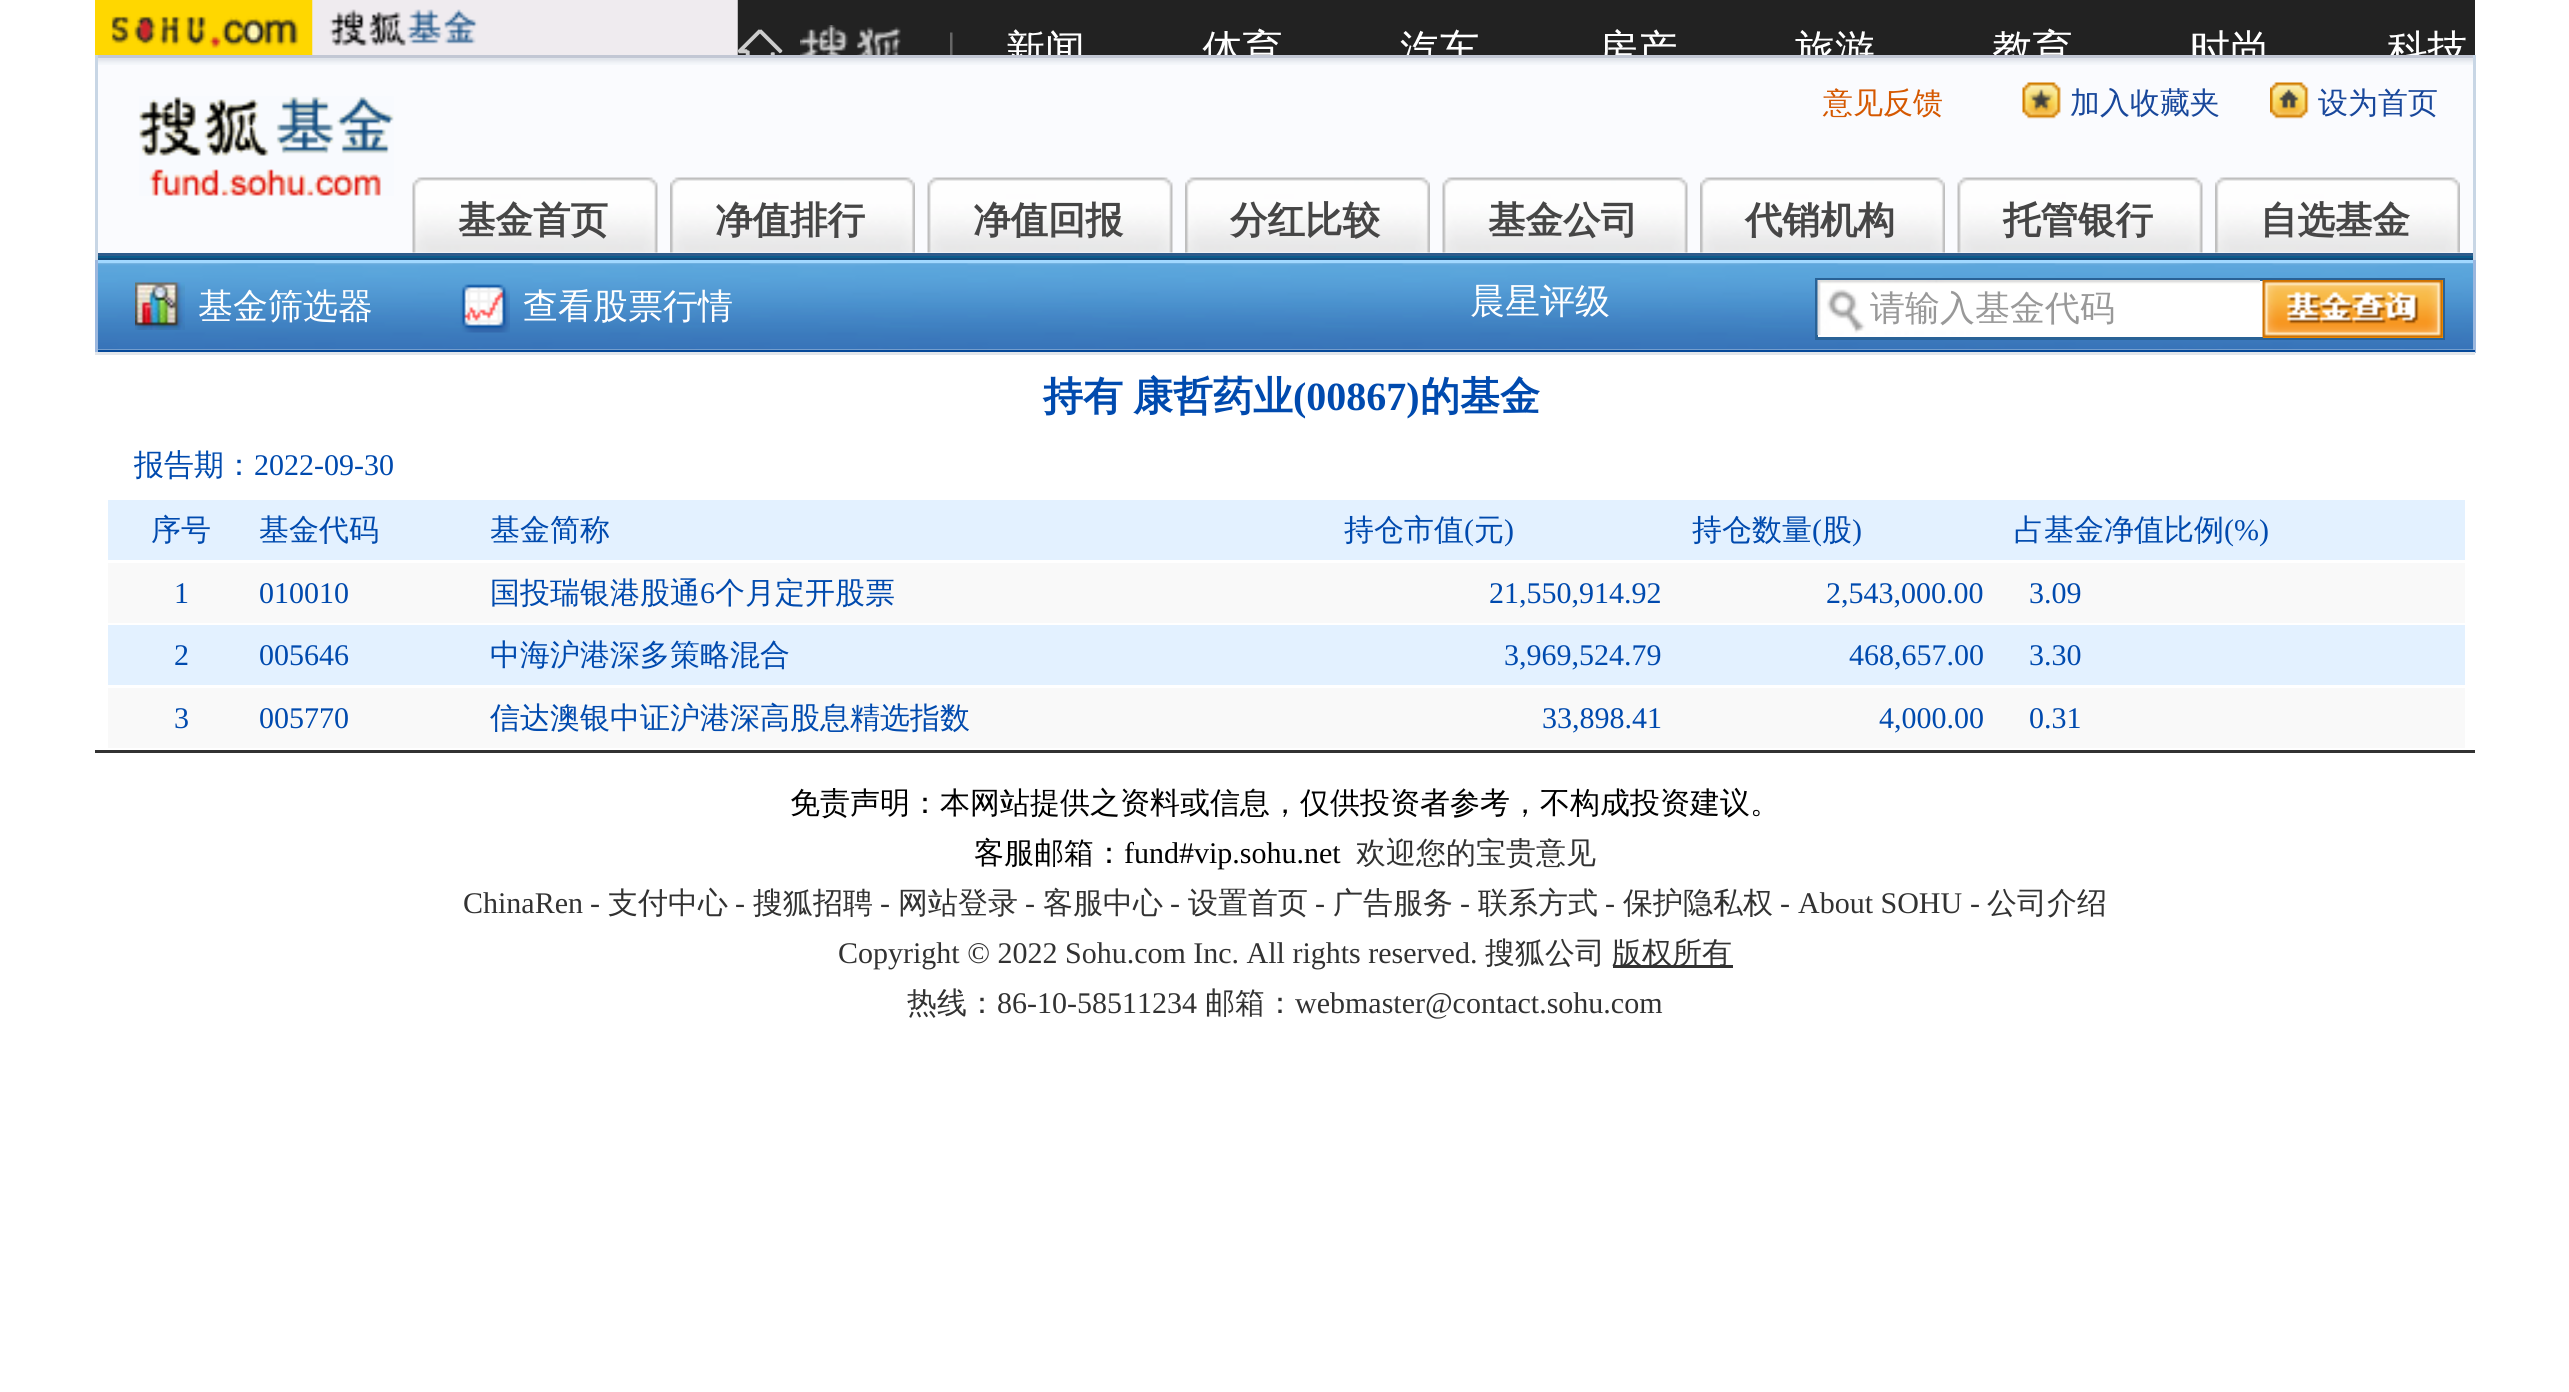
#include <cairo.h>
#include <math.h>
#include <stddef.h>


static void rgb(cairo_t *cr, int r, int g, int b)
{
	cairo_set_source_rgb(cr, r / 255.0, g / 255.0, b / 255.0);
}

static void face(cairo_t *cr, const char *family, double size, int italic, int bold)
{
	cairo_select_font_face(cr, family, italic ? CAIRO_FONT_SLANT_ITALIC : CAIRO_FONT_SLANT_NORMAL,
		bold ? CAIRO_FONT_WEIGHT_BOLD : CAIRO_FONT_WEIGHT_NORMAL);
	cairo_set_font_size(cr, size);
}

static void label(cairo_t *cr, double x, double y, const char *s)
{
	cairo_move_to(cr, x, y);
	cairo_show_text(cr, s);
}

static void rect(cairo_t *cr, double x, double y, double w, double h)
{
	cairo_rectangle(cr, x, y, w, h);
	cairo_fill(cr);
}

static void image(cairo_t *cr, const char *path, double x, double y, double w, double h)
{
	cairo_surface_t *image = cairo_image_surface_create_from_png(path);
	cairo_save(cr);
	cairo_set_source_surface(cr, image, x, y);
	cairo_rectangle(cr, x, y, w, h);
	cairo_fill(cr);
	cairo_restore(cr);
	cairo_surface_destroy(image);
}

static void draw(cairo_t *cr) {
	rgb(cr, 255, 255, 255);
	cairo_paint(cr);
	image(cr, "image0.png", 95, 0, 2380, 55);
	rgb(cr, 250, 251, 254);
	rect(cr, 98, 58, 2375, 195);
	image(cr, "image1.png", 98, 58, 2375, 7);
	rgb(cr, 194, 199, 212);
	rect(cr, 95, 55, 2380, 3);
	rgb(cr, 200, 214, 229);
	rect(cr, 2473, 55, 3, 205);
	rect(cr, 95, 55, 3, 205);
	image(cr, "image2.png", 139, 96, 255, 100);
	face(cr, "WenQuanYi Zen Hei Medium", 30, 0, 0);
	rgb(cr, 213, 88, 0);
	label(cr, 1823, 113, "意见反馈");
	image(cr, "image3.png", 2022, 82, 39, 37);
	rgb(cr, 24, 71, 155);
	label(cr, 2070, 113, "加入收藏夹");
	image(cr, "image4.png", 2270, 82, 39, 37);
	label(cr, 2318, 113, "设为首页");
	image(cr, "image5.png", 412, 177, 246, 76);
	face(cr, "WenQuanYi Zen Hei", 37.5, 0, 1);
	rgb(cr, 70, 70, 70);
	label(cr, 458, 233, "基金首页");
	image(cr, "image6.png", 670, 177, 245, 76);
	label(cr, 715, 233, "净值排行");
	image(cr, "image7.png", 927, 177, 246, 76);
	label(cr, 973, 233, "净值回报");
	image(cr, "image8.png", 1185, 177, 245, 76);
	label(cr, 1230, 233, "分红比较");
	image(cr, "image9.png", 1442, 177, 246, 76);
	label(cr, 1488, 233, "基金公司");
	image(cr, "image10.png", 1700, 177, 245, 76);
	label(cr, 1745, 233, "代销机构");
	image(cr, "image9.png", 1957, 177, 246, 76);
	label(cr, 2003, 233, "托管银行");
	image(cr, "image11.png", 2215, 177, 245, 76);
	label(cr, 2260, 233, "自选基金");
	rgb(cr, 11, 92, 140);
	rect(cr, 98, 256, 2375, 2);
	rgb(cr, 46, 91, 139);
	rect(cr, 98, 253, 2375, 3);
	rgb(cr, 18, 72, 121);
	rect(cr, 98, 258, 2375, 2);
	image(cr, "image12.png", 98, 263, 2375, 87);
	rgb(cr, 161, 216, 255);
	rect(cr, 95, 260, 2380, 3);
	rgb(cr, 155, 183, 222);
	rect(cr, 2473, 260, 3, 93);
	rgb(cr, 5, 73, 154);
	rect(cr, 95, 350, 2380, 2);
	rgb(cr, 155, 183, 222);
	rect(cr, 95, 260, 3, 93);
	image(cr, "image13.png", 135, 282, 50, 48);
	face(cr, "WenQuanYi Zen Hei Medium", 35, 0, 0);
	rgb(cr, 255, 255, 255);
	label(cr, 198, 318, "基金筛选器");
	image(cr, "image14.png", 460, 284, 50, 49);
	label(cr, 523, 318, "查看股票行情");
	label(cr, 1470, 313, "晨星评级");
	rect(cr, 1818, 281, 445, 56);
	cairo_rectangle(cr, 1816.5, 279.5, 627, 59);
	rgb(cr, 41, 98, 150);
	cairo_set_line_width(cr, 3);
	cairo_stroke(cr);
	image(cr, "image15.png", 1817, 280, 443, 55);
	rgb(cr, 153, 153, 153);
	label(cr, 1870, 320, "请输入基金代码");
	rgb(cr, 255, 153, 0);
	rect(cr, 2263, 280, 180, 58);
	image(cr, "image16.png", 2262, 280, 181, 58);
	rgb(cr, 226, 230, 235);
	rect(cr, 95, 352, 2380, 3);
	face(cr, "WenQuanYi Zen Hei", 40, 0, 1);
	rgb(cr, 0, 74, 174);
	label(cr, 1043, 410, "持有");
	label(cr, 1133, 410, "康哲药业");
	face(cr, "Liberation Serif", 40, 0, 1);
	label(cr, 1293, 410, "(00867)");
	face(cr, "WenQuanYi Zen Hei", 40, 0, 1);
	label(cr, 1420, 410, "的基金");
	face(cr, "WenQuanYi Zen Hei Medium", 30, 0, 0);
	label(cr, 134, 475, "报告期：");
	face(cr, "Liberation Serif", 30, 0, 0);
	label(cr, 254, 475, "2022-09-30");
	rgb(cr, 227, 241, 255);
	rect(cr, 108, 500, 2357, 60);
	face(cr, "WenQuanYi Zen Hei Medium", 30, 0, 0);
	rgb(cr, 0, 74, 174);
	label(cr, 151, 540, "序号");
	label(cr, 259, 540, "基金代码");
	label(cr, 490, 540, "基金简称");
	label(cr, 1344, 540, "持仓市值");
	face(cr, "Liberation Serif", 30, 0, 0);
	label(cr, 1464, 540, "(");
	face(cr, "WenQuanYi Zen Hei Medium", 30, 0, 0);
	label(cr, 1474, 540, "元");
	face(cr, "Liberation Serif", 30, 0, 0);
	label(cr, 1504, 540, ")");
	face(cr, "WenQuanYi Zen Hei Medium", 30, 0, 0);
	label(cr, 1692, 540, "持仓数量");
	face(cr, "Liberation Serif", 30, 0, 0);
	label(cr, 1812, 540, "(");
	face(cr, "WenQuanYi Zen Hei Medium", 30, 0, 0);
	label(cr, 1822, 540, "股");
	face(cr, "Liberation Serif", 30, 0, 0);
	label(cr, 1852, 540, ")");
	face(cr, "WenQuanYi Zen Hei Medium", 30, 0, 0);
	label(cr, 2014, 540, "占基金净值比例");
	face(cr, "Liberation Serif", 30, 0, 0);
	label(cr, 2224, 540, "(%)");
	rgb(cr, 249, 249, 249);
	rect(cr, 108, 563, 2357, 60);
	rgb(cr, 0, 74, 174);
	label(cr, 174, 603, "1");
	label(cr, 259, 603, "010010");
	face(cr, "WenQuanYi Zen Hei Medium", 30, 0, 0);
	label(cr, 490, 603, "国投瑞银港股通");
	face(cr, "Liberation Serif", 30, 0, 0);
	label(cr, 700, 603, "6");
	face(cr, "WenQuanYi Zen Hei Medium", 30, 0, 0);
	label(cr, 715, 603, "个月定开股票");
	face(cr, "Liberation Serif", 30, 0, 0);
	label(cr, 1489, 603, "21,550,914.92");
	label(cr, 1826, 603, "2,543,000.00");
	label(cr, 2029, 603, "3.09");
	rgb(cr, 227, 241, 255);
	rect(cr, 108, 625, 2357, 60);
	rgb(cr, 0, 74, 174);
	label(cr, 174, 665, "2");
	label(cr, 259, 665, "005646");
	face(cr, "WenQuanYi Zen Hei Medium", 30, 0, 0);
	label(cr, 490, 665, "中海沪港深多策略混合");
	face(cr, "Liberation Serif", 30, 0, 0);
	label(cr, 1504, 665, "3,969,524.79");
	label(cr, 1849, 665, "468,657.00");
	label(cr, 2029, 665, "3.30");
	rgb(cr, 249, 249, 249);
	rect(cr, 108, 688, 2357, 60);
	rgb(cr, 0, 74, 174);
	label(cr, 174, 728, "3");
	label(cr, 259, 728, "005770");
	face(cr, "WenQuanYi Zen Hei Medium", 30, 0, 0);
	label(cr, 490, 728, "信达澳银中证沪港深高股息精选指数");
	face(cr, "Liberation Serif", 30, 0, 0);
	label(cr, 1542, 728, "33,898.41");
	label(cr, 1879, 728, "4,000.00");
	label(cr, 2029, 728, "0.31");
	rgb(cr, 50, 50, 50);
	rect(cr, 95, 750, 2380, 3);
	face(cr, "WenQuanYi Zen Hei Medium", 30, 0, 0);
	rgb(cr, 0, 0, 0);
	label(cr, 790, 813, "免责声明：本网站提供之资料或信息，仅供投资者参考，不构成投资建议。");
	label(cr, 974, 863, "客服邮箱：");
	face(cr, "Liberation Serif", 30, 0, 0);
	label(cr, 1124, 863, "fund#vip.sohu.net");
	face(cr, "WenQuanYi Zen Hei Medium", 30, 0, 0);
	rgb(cr, 50, 50, 50);
	label(cr, 1356, 863, "欢迎您的宝贵意见");
	face(cr, "Liberation Serif", 30, 0, 0);
	label(cr, 463, 913, "ChinaRen");
	label(cr, 590, 913, "-");
	face(cr, "WenQuanYi Zen Hei Medium", 30, 0, 0);
	label(cr, 608, 913, "支付中心");
	face(cr, "Liberation Serif", 30, 0, 0);
	label(cr, 735, 913, "-");
	face(cr, "WenQuanYi Zen Hei Medium", 30, 0, 0);
	label(cr, 753, 913, "搜狐招聘");
	face(cr, "Liberation Serif", 30, 0, 0);
	label(cr, 880, 913, "-");
	face(cr, "WenQuanYi Zen Hei Medium", 30, 0, 0);
	label(cr, 898, 913, "网站登录");
	face(cr, "Liberation Serif", 30, 0, 0);
	label(cr, 1025, 913, "-");
	face(cr, "WenQuanYi Zen Hei Medium", 30, 0, 0);
	label(cr, 1043, 913, "客服中心");
	face(cr, "Liberation Serif", 30, 0, 0);
	label(cr, 1170, 913, "-");
	face(cr, "WenQuanYi Zen Hei Medium", 30, 0, 0);
	label(cr, 1188, 913, "设置首页");
	face(cr, "Liberation Serif", 30, 0, 0);
	label(cr, 1315, 913, "-");
	face(cr, "WenQuanYi Zen Hei Medium", 30, 0, 0);
	label(cr, 1333, 913, "广告服务");
	face(cr, "Liberation Serif", 30, 0, 0);
	label(cr, 1460, 913, "-");
	face(cr, "WenQuanYi Zen Hei Medium", 30, 0, 0);
	label(cr, 1478, 913, "联系方式");
	face(cr, "Liberation Serif", 30, 0, 0);
	label(cr, 1605, 913, "-");
	face(cr, "WenQuanYi Zen Hei Medium", 30, 0, 0);
	label(cr, 1623, 913, "保护隐私权");
	face(cr, "Liberation Serif", 30, 0, 0);
	label(cr, 1780, 913, "-");
	label(cr, 1798, 913, "About SOHU");
	label(cr, 1970, 913, "-");
	face(cr, "WenQuanYi Zen Hei Medium", 30, 0, 0);
	label(cr, 1987, 913, "公司介绍");
	face(cr, "Liberation Serif", 30, 0, 0);
	label(cr, 838, 963, "Copyright © 2022 Sohu.com Inc. All rights reserved.");
	face(cr, "WenQuanYi Zen Hei Medium", 30, 0, 0);
	label(cr, 1485, 963, "搜狐公司");
	rect(cr, 1613, 965, 120, 3);
	label(cr, 1612, 963, "版权所有");
	label(cr, 907, 1013, "热线：");
	face(cr, "Liberation Serif", 30, 0, 0);
	label(cr, 997, 1013, "86-10-58511234");
	face(cr, "WenQuanYi Zen Hei Medium", 30, 0, 0);
	label(cr, 1205, 1013, "邮箱：");
	face(cr, "Liberation Serif", 30, 0, 0);
	label(cr, 1295, 1013, "webmaster@contact.sohu.com");
}

int main(void) {
	cairo_surface_t *surface = cairo_image_surface_create(CAIRO_FORMAT_RGB24, 2569, 1392);
	cairo_t *cr = cairo_create(surface);
	cairo_font_options_t *options = cairo_font_options_create();
	cairo_font_options_set_hint_metrics(options, CAIRO_HINT_METRICS_OFF);
	cairo_font_options_set_hint_style(options, CAIRO_HINT_STYLE_NONE);
	cairo_set_font_options(cr, options);
	cairo_set_miter_limit(cr, 4);
	draw(cr);
	cairo_surface_write_to_png(surface, "render.png");
	cairo_font_options_destroy(options);
	cairo_destroy(cr);
	cairo_surface_destroy(surface);
	return 0;
}
